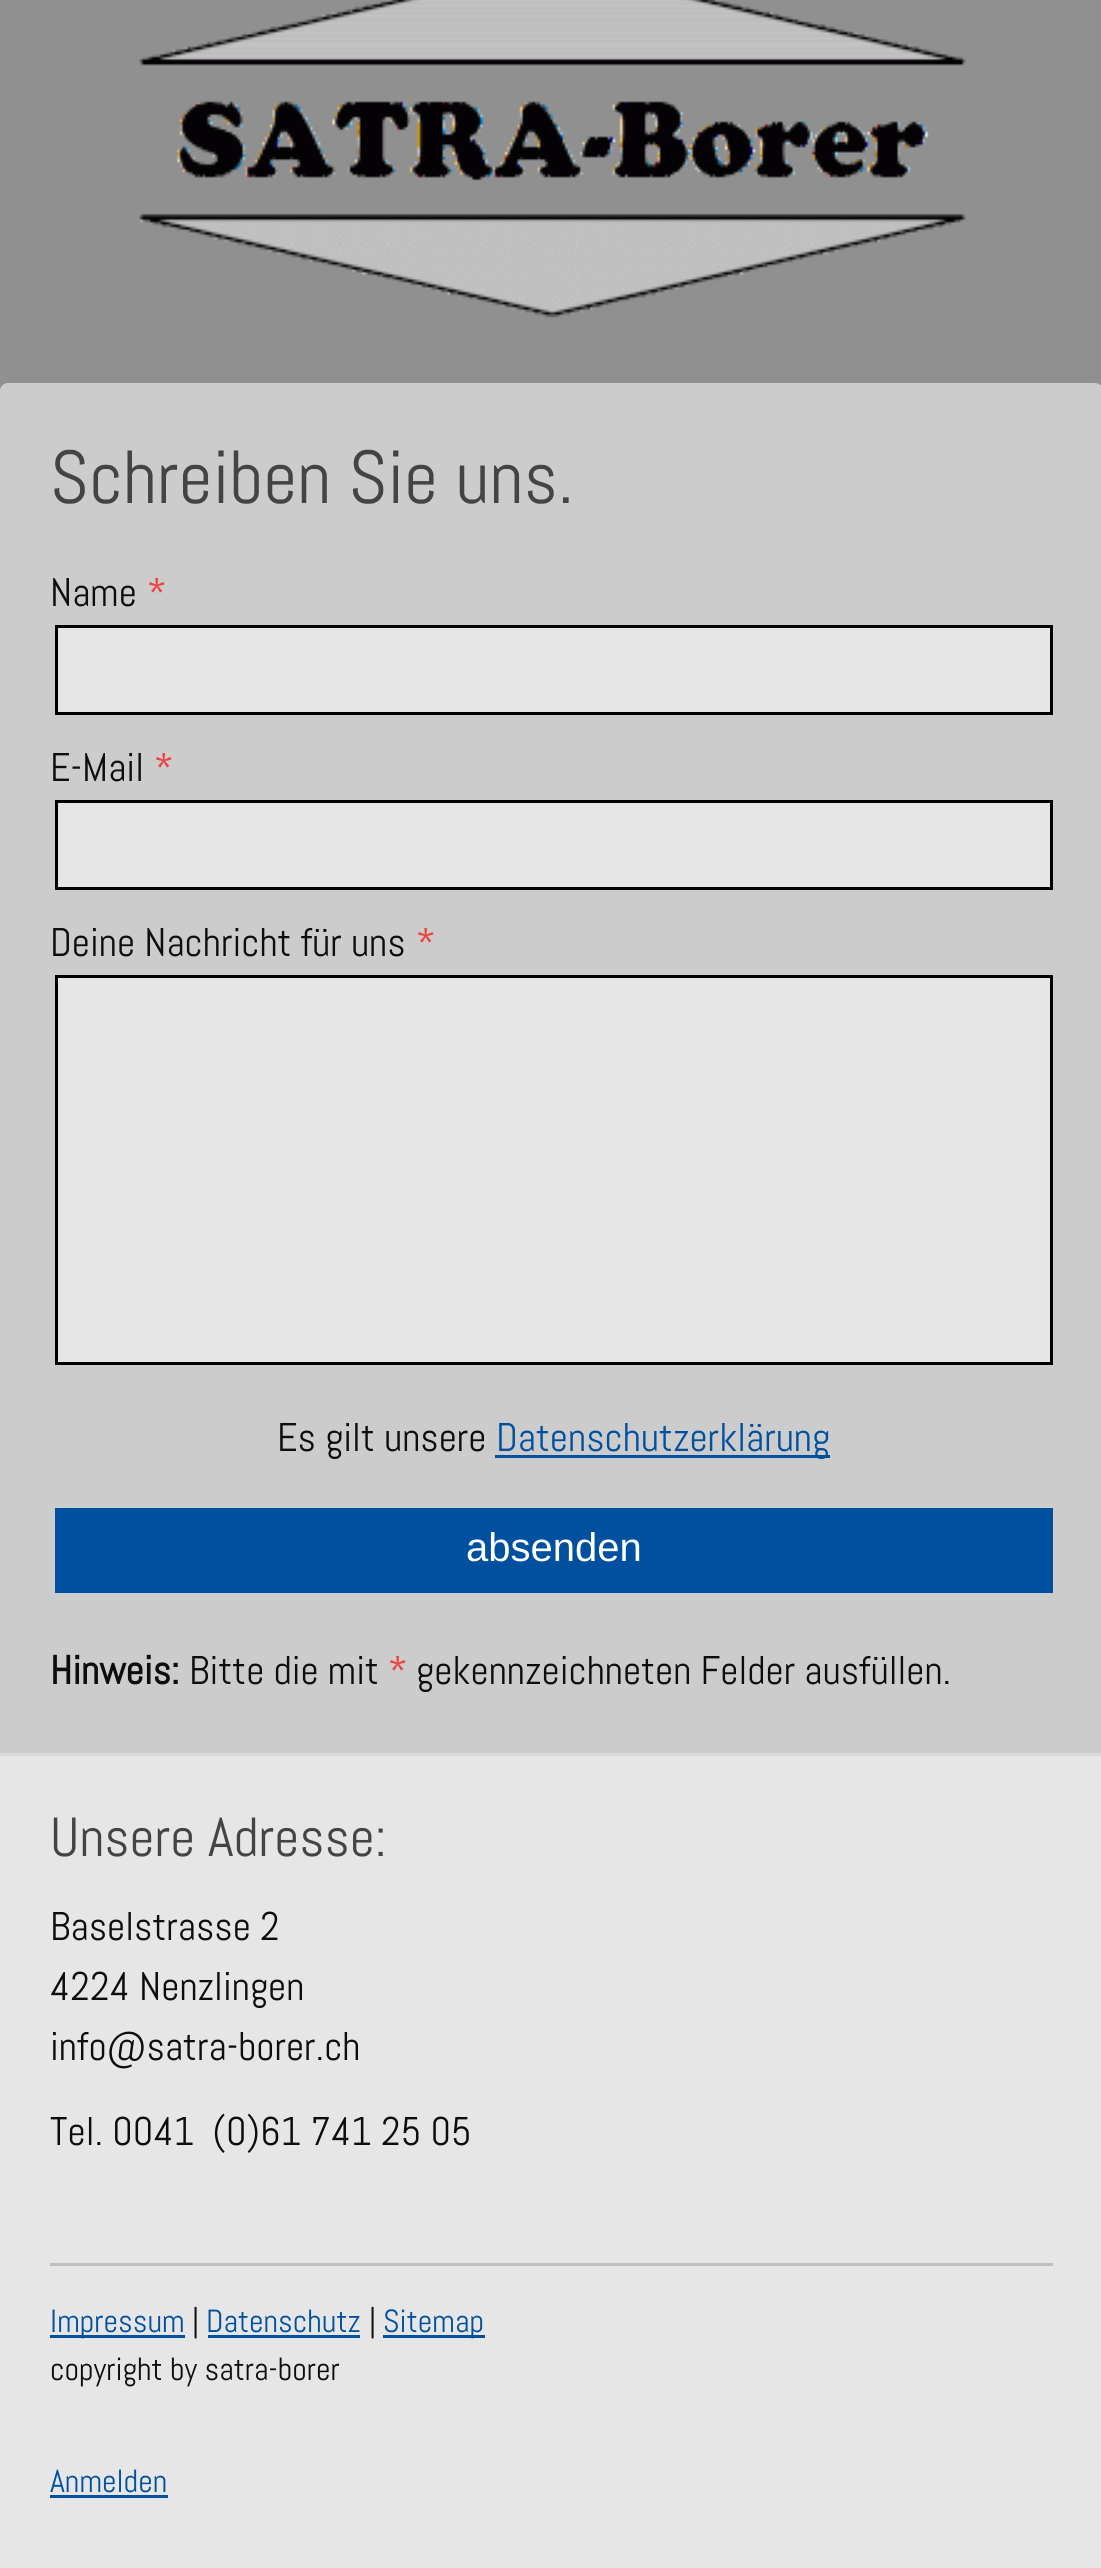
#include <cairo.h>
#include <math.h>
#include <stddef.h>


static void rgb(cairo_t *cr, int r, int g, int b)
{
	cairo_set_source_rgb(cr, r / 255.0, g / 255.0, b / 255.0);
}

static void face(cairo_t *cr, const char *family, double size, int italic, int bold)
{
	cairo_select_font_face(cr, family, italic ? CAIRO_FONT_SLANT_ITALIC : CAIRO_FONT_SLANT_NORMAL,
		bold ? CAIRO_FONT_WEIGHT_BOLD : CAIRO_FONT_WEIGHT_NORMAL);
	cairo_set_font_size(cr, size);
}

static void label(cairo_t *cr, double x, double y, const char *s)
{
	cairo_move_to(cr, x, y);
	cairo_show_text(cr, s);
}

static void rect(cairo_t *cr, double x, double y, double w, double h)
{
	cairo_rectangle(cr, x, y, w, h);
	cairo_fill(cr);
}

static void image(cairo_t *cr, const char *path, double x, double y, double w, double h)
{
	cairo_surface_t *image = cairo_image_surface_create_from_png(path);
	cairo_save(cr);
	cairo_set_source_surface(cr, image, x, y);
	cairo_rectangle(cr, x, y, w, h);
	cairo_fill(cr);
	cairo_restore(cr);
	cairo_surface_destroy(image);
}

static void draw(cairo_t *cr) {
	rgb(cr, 144, 144, 144);
	cairo_paint(cr);
	image(cr, "image0.png", 139, 0, 827, 318);
	rgb(cr, 204, 204, 204);
	cairo_new_path(cr);
	cairo_move_to(cr, 8, 383);
	cairo_line_to(cr, 1095, 383);
	cairo_curve_to(cr, 1099.5, 383, 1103, 386.5, 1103, 391);
	cairo_line_to(cr, 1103, 1753);
	cairo_line_to(cr, 0, 1753);
	cairo_line_to(cr, 0, 391);
	cairo_curve_to(cr, 0, 386.5, 3.5, 383, 8, 383);
	cairo_close_path(cr);
	cairo_fill(cr);
	face(cr, "Abel", 75, 0, 0);
	rgb(cr, 68, 68, 68);
	label(cr, 50, 503, "Schreiben Sie uns.");
	face(cr, "Abel", 40, 0, 0);
	rgb(cr, 13, 13, 13);
	label(cr, 50, 606, "Name");
	rgb(cr, 235, 67, 62);
	label(cr, 147, 606, "*");
	rgb(cr, 230, 230, 230);
	cairo_rectangle(cr, 56.5, 626.5, 995, 87);
	cairo_fill_preserve(cr);
	rgb(cr, 0, 0, 0);
	cairo_set_line_width(cr, 3);
	cairo_stroke(cr);
	rgb(cr, 13, 13, 13);
	label(cr, 50, 781, "E-Mail");
	rgb(cr, 235, 67, 62);
	label(cr, 154, 781, "*");
	rgb(cr, 230, 230, 230);
	cairo_rectangle(cr, 56.5, 801.5, 995, 87);
	cairo_fill_preserve(cr);
	rgb(cr, 0, 0, 0);
	cairo_stroke(cr);
	rgb(cr, 13, 13, 13);
	label(cr, 50, 956, "Deine Nachricht für uns");
	rgb(cr, 235, 67, 62);
	label(cr, 416, 956, "*");
	rgb(cr, 230, 230, 230);
	cairo_rectangle(cr, 56.5, 976.5, 995, 387);
	cairo_fill_preserve(cr);
	rgb(cr, 0, 0, 0);
	cairo_stroke(cr);
	rgb(cr, 13, 13, 13);
	label(cr, 277, 1451, "Es gilt unsere");
	rgb(cr, 0, 80, 160);
	rect(cr, 495, 1455, 335, 3);
	label(cr, 496, 1451, "Datenschutzerklärung");
	rect(cr, 55, 1508, 998, 85);
	face(cr, "Liberation Sans", 40, 0, 0);
	rgb(cr, 255, 255, 255);
	label(cr, 466, 1561, "absenden");
	face(cr, "Abel", 40, 0, 1);
	rgb(cr, 13, 13, 13);
	label(cr, 50, 1684, "Hinweis:");
	face(cr, "Abel", 40, 0, 0);
	label(cr, 189, 1684, "Bitte die mit");
	rgb(cr, 235, 67, 62);
	label(cr, 388, 1684, "*");
	rgb(cr, 13, 13, 13);
	label(cr, 416, 1684, "gekennzeichneten Felder ausfüllen.");
	rgb(cr, 230, 230, 230);
	rect(cr, 0, 1756, 1101, 812);
	rgb(cr, 217, 217, 217);
	rect(cr, 0, 1753, 1101, 3);
	face(cr, "Abel", 55, 0, 0);
	rgb(cr, 68, 68, 68);
	label(cr, 50, 1856, "Unsere Adresse:");
	face(cr, "Abel", 40, 0, 0);
	rgb(cr, 13, 13, 13);
	label(cr, 50, 1940, "Baselstrasse 2");
	label(cr, 50, 2000, "4224 Nenzlingen");
	label(cr, 50, 2060, "info@satra-borer.ch");
	label(cr, 50, 2145, "Tel. 0041  (0)61 741 25 05");
	rgb(cr, 191, 191, 191);
	rect(cr, 50, 2263, 1003, 3);
	rgb(cr, 0, 80, 160);
	rect(cr, 50, 2335, 135, 3);
	face(cr, "Abel", 32, 0, 0);
	label(cr, 50, 2332, "Impressum");
	rgb(cr, 13, 13, 13);
	label(cr, 192, 2332, "|");
	rgb(cr, 0, 80, 160);
	label(cr, 206, 2332, "Datenschutz");
	rect(cr, 208, 2335, 152, 3);
	rgb(cr, 13, 13, 13);
	label(cr, 369, 2332, "|");
	rgb(cr, 0, 80, 160);
	rect(cr, 383, 2335, 102, 3);
	label(cr, 383, 2332, "Sitemap");
	rgb(cr, 13, 13, 13);
	label(cr, 50, 2380, "copyright by satra-borer");
	rgb(cr, 0, 80, 160);
	label(cr, 50, 2492, "Anmelden");
	rect(cr, 50, 2495, 118, 3);
}

int main(void) {
	cairo_surface_t *surface = cairo_image_surface_create(CAIRO_FORMAT_RGB24, 1101, 2568);
	cairo_t *cr = cairo_create(surface);
	cairo_font_options_t *options = cairo_font_options_create();
	cairo_font_options_set_hint_metrics(options, CAIRO_HINT_METRICS_OFF);
	cairo_font_options_set_hint_style(options, CAIRO_HINT_STYLE_NONE);
	cairo_set_font_options(cr, options);
	cairo_set_miter_limit(cr, 4);
	draw(cr);
	cairo_surface_write_to_png(surface, "render.png");
	cairo_font_options_destroy(options);
	cairo_destroy(cr);
	cairo_surface_destroy(surface);
	return 0;
}
